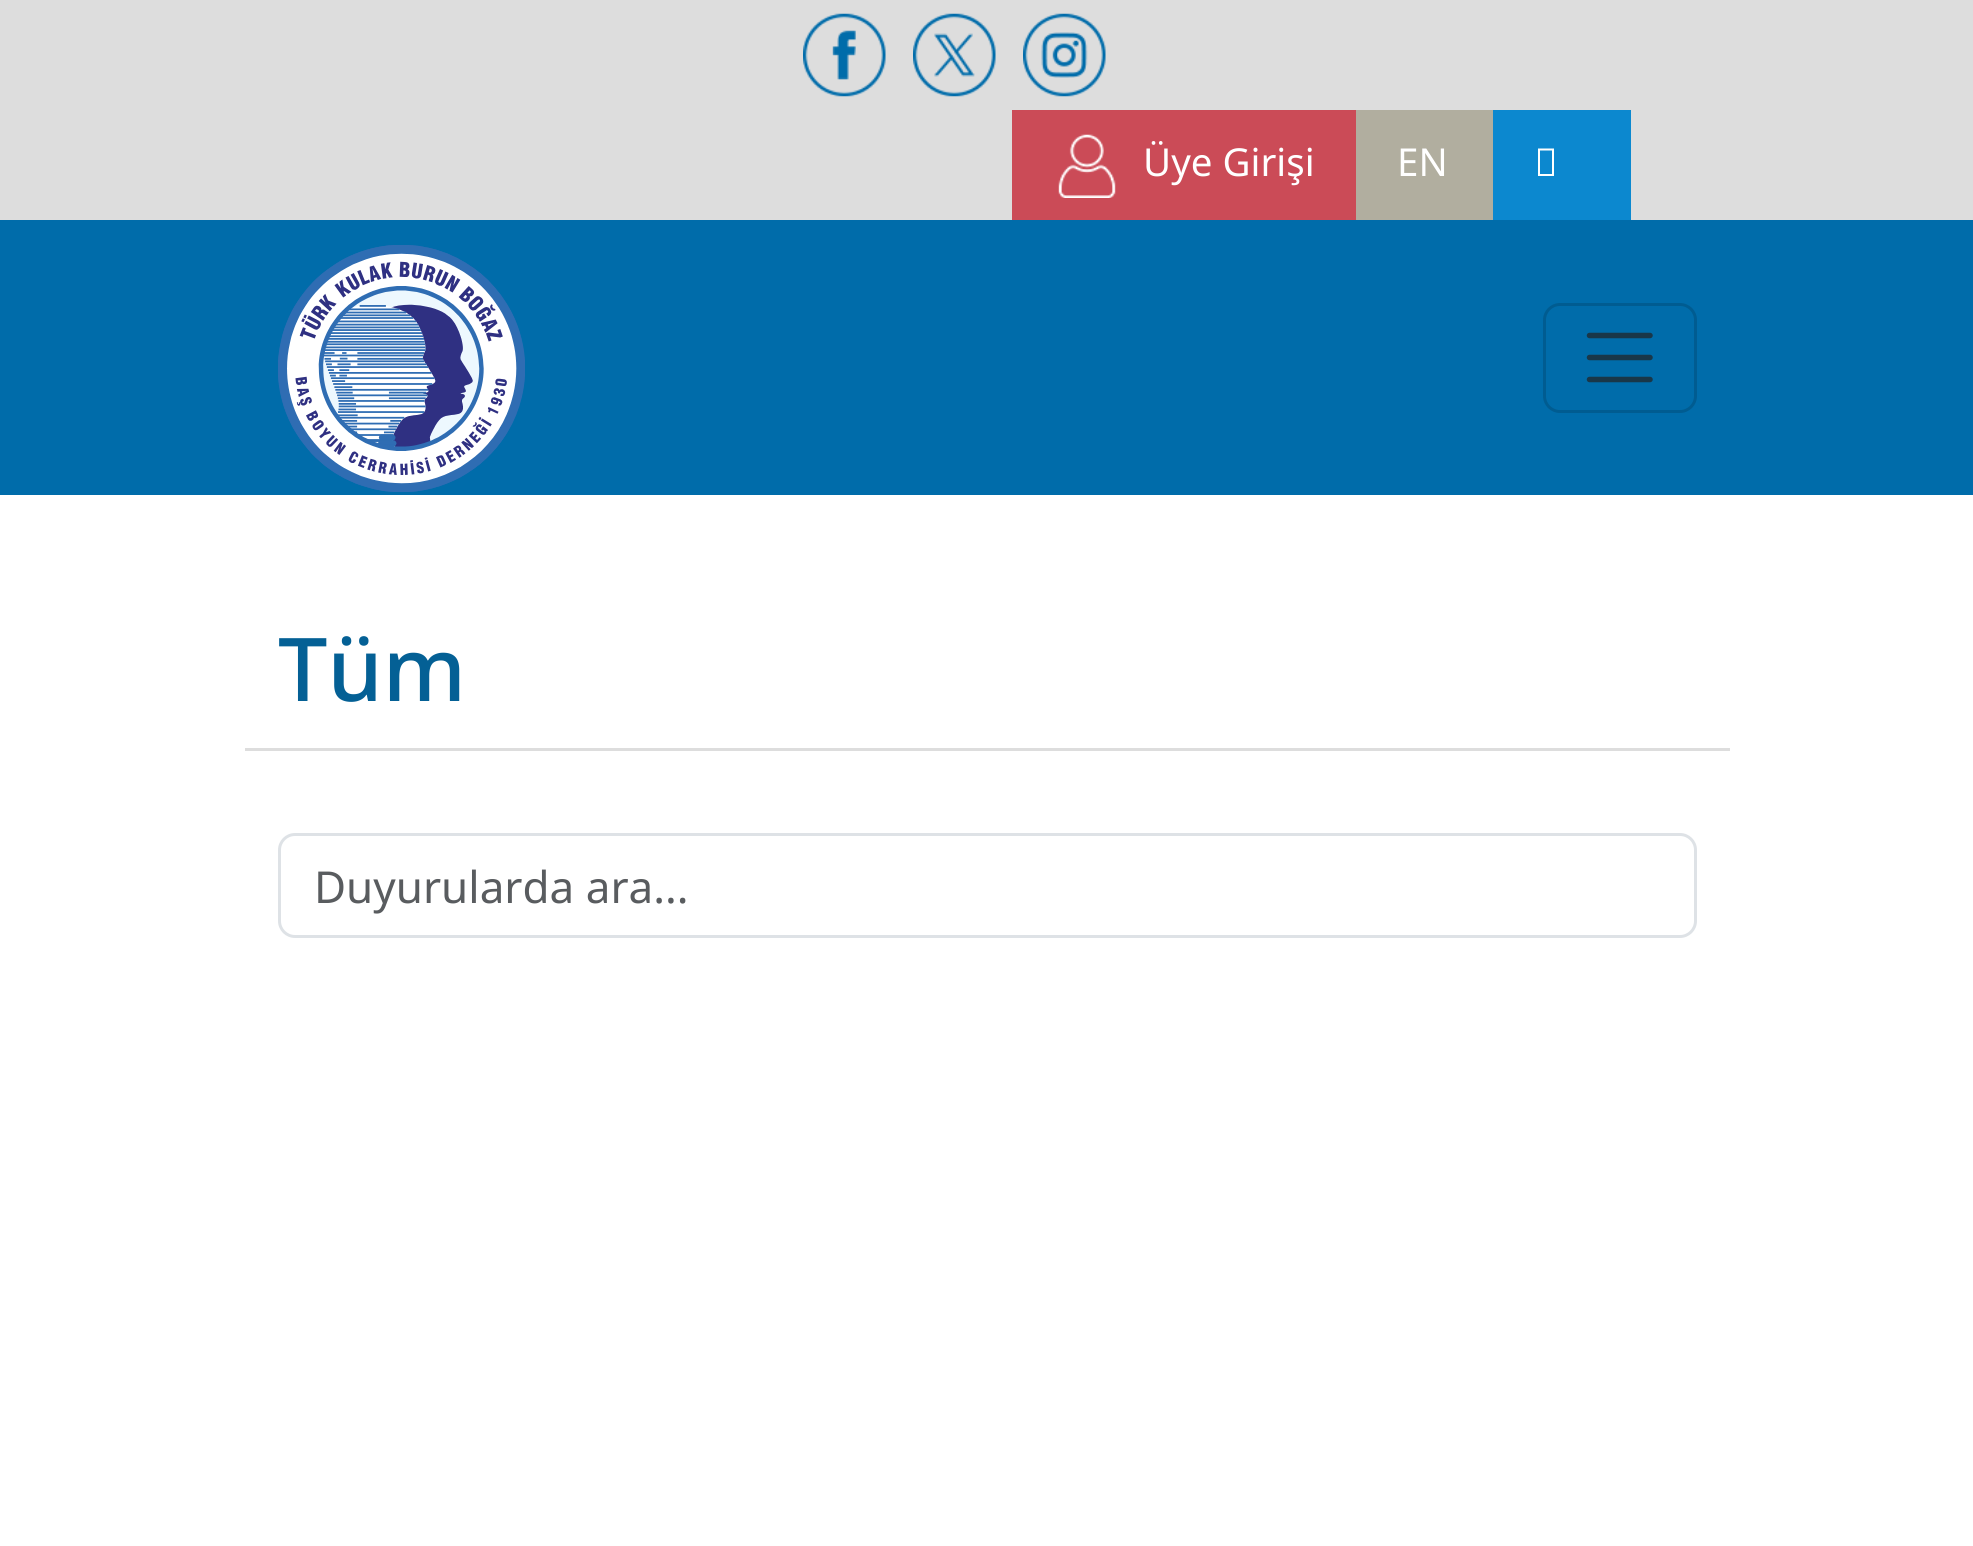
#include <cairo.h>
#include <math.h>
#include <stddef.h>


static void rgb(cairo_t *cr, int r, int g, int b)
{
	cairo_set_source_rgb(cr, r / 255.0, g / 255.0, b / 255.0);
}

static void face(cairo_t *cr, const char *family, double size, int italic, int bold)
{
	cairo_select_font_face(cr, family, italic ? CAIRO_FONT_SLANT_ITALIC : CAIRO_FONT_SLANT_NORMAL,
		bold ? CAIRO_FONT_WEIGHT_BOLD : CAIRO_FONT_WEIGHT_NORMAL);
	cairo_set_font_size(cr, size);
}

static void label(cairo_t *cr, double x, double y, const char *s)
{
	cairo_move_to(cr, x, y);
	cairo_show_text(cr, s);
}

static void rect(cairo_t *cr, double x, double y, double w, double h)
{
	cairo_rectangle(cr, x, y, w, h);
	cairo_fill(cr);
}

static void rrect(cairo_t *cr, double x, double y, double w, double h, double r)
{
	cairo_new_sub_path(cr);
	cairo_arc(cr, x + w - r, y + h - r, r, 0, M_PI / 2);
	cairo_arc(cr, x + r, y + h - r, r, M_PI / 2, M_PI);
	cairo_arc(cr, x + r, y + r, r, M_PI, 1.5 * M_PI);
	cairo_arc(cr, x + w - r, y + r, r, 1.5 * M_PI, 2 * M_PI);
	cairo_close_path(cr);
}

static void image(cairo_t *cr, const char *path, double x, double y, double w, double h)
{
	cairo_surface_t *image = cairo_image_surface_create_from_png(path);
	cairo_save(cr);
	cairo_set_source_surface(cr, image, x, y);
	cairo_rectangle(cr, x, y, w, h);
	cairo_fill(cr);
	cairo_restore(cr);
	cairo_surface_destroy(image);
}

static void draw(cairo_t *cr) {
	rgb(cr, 255, 255, 255);
	cairo_paint(cr);
	rgb(cr, 221, 221, 221);
	rect(cr, 0, 0, 1973, 220);
	image(cr, "image0.png", 803, 13, 83, 84);
	image(cr, "image1.png", 913, 13, 83, 84);
	image(cr, "image2.png", 1023, 13, 83, 84);
	rgb(cr, 203, 75, 87);
	rect(cr, 1012, 110, 344, 110);
	image(cr, "image3.png", 1058, 134, 58, 64);
	face(cr, "Noto Sans", 38.5, 0, 0);
	rgb(cr, 255, 255, 255);
	label(cr, 1143, 176, "Üye Girişi");
	rgb(cr, 177, 174, 159);
	rect(cr, 1356, 110, 137, 110);
	rgb(cr, 255, 255, 255);
	label(cr, 1397, 176, "EN");
	rgb(cr, 12, 136, 207);
	rect(cr, 1493, 110, 138, 110);
	rgb(cr, 255, 255, 255);
	cairo_new_path(cr);
	cairo_move_to(cr, 1538, 176);
	cairo_line_to(cr, 1538, 148.5);
	cairo_line_to(cr, 1554, 148.5);
	cairo_line_to(cr, 1554, 176);
	cairo_close_path(cr);
	cairo_move_to(cr, 1540, 174);
	cairo_line_to(cr, 1552, 174);
	cairo_line_to(cr, 1552, 150.5);
	cairo_line_to(cr, 1540, 150.5);
	cairo_close_path(cr);
	cairo_fill(cr);
	rgb(cr, 0, 108, 170);
	rect(cr, 0, 220, 1973, 275);
	image(cr, "image4.png", 278, 245, 247, 247);
	rrect(cr, 1544.5, 304.5, 151, 107, 15.5);
	rgb(cr, 0, 92, 145);
	cairo_set_line_width(cr, 3);
	cairo_stroke(cr);
	cairo_new_path(cr);
	cairo_move_to(cr, 1589.5, 335.5);
	cairo_line_to(cr, 1650, 335.5);
	cairo_move_to(cr, 1589.5, 357.5);
	cairo_line_to(cr, 1650, 357.5);
	cairo_move_to(cr, 1589.5, 379.5);
	cairo_line_to(cr, 1650, 379.5);
	rgb(cr, 25, 55, 73);
	cairo_set_line_width(cr, 5.5);
	cairo_set_line_cap(cr, CAIRO_LINE_CAP_ROUND);
	cairo_stroke(cr);
	rgb(cr, 221, 221, 221);
	rect(cr, 245, 748, 1485, 3);
	face(cr, "Noto Sans Medium", 88, 0, 0);
	rgb(cr, 4, 96, 149);
	label(cr, 278, 701, "Tüm");
	rrect(cr, 279.5, 834.5, 1416, 102, 15.5);
	rgb(cr, 222, 226, 230);
	cairo_set_line_width(cr, 3);
	cairo_set_line_cap(cr, CAIRO_LINE_CAP_BUTT);
	cairo_stroke(cr);
	face(cr, "Noto Sans", 44, 0, 0);
	rgb(cr, 89, 92, 95);
	label(cr, 314, 903, "Duyurularda ara...");
}

int main(void) {
	cairo_surface_t *surface = cairo_image_surface_create(CAIRO_FORMAT_RGB24, 1973, 1546);
	cairo_t *cr = cairo_create(surface);
	cairo_font_options_t *options = cairo_font_options_create();
	cairo_font_options_set_hint_metrics(options, CAIRO_HINT_METRICS_OFF);
	cairo_font_options_set_hint_style(options, CAIRO_HINT_STYLE_NONE);
	cairo_set_font_options(cr, options);
	cairo_set_miter_limit(cr, 4);
	draw(cr);
	cairo_surface_write_to_png(surface, "render.png");
	cairo_font_options_destroy(options);
	cairo_destroy(cr);
	cairo_surface_destroy(surface);
	return 0;
}
